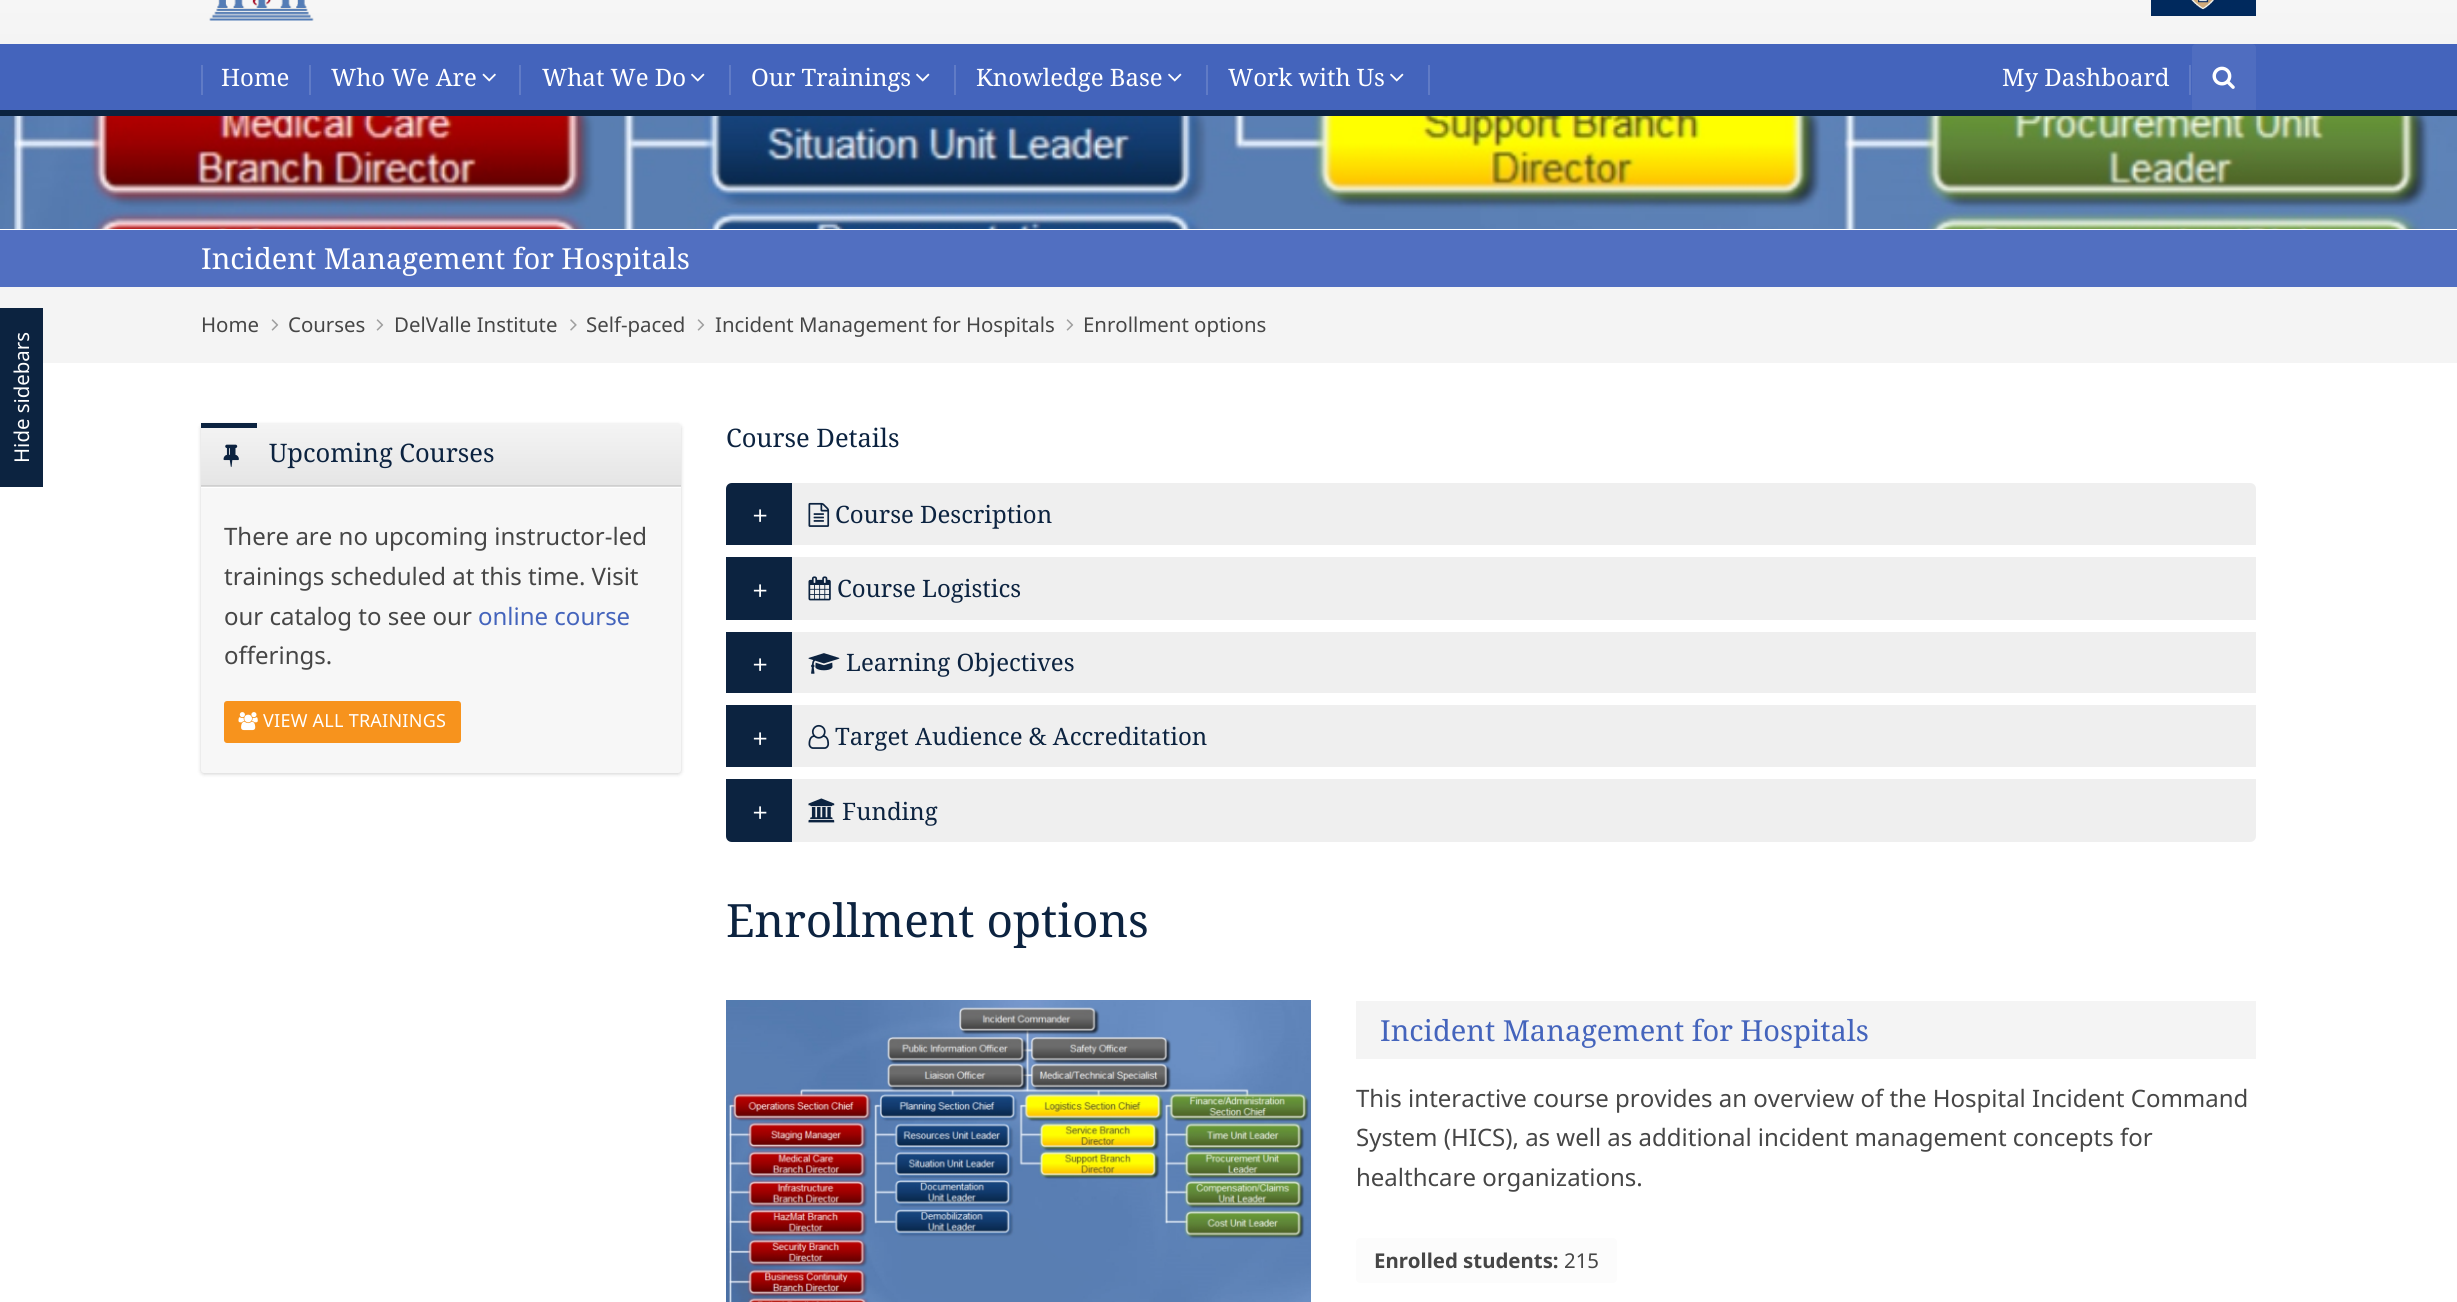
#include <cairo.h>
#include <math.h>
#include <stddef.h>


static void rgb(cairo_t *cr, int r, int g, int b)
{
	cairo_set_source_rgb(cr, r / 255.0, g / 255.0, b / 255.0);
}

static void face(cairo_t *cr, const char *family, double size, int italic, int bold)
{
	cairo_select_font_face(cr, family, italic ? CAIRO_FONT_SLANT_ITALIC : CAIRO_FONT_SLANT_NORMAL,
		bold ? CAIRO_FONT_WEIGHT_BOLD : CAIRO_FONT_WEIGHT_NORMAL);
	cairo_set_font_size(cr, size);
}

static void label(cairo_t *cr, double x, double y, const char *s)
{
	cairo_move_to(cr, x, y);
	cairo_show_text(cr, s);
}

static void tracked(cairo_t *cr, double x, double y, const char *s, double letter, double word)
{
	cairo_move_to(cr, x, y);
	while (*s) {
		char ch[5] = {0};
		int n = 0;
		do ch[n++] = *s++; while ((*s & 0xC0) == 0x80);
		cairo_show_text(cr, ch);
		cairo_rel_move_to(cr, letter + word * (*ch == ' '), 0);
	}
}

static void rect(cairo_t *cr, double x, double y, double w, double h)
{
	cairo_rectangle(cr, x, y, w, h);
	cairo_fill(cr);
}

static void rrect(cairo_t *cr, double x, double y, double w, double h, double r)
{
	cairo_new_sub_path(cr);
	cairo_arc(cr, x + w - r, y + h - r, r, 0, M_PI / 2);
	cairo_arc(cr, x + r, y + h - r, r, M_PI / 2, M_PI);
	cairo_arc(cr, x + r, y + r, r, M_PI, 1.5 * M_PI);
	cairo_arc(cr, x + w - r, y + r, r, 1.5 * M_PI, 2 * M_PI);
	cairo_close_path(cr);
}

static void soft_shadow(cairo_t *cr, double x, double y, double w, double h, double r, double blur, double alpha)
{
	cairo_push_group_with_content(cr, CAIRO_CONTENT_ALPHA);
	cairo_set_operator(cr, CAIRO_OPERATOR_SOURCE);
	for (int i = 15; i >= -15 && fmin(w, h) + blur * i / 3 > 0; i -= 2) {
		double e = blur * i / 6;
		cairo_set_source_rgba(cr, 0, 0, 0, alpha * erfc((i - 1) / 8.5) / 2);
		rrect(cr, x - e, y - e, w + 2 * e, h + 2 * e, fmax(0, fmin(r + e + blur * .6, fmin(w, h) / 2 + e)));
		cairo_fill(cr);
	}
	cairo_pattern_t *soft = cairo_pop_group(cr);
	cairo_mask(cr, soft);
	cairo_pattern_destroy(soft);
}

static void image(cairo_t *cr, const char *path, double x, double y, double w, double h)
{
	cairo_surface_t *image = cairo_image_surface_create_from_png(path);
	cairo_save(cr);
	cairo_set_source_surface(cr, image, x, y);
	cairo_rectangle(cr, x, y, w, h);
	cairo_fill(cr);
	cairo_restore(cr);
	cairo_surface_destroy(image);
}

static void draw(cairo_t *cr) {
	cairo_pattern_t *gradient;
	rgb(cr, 255, 255, 255);
	cairo_paint(cr);
	rgb(cr, 244, 244, 244);
	rect(cr, 0, 287, 2457, 76);
	rgb(cr, 12, 35, 64);
	rect(cr, 0, 308, 43, 179);
	face(cr, "Noto Sans", 20.4, 0, 0);
	rgb(cr, 255, 255, 255);
	cairo_save(cr);
	cairo_translate(cr, 29, 463);
	cairo_rotate(cr, -90 * M_PI / 180);
	label(cr, 0, 0, "Hide sidebars");
	cairo_restore(cr);
	gradient = cairo_pattern_create_linear(1229, -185, 1229, 44);
	cairo_pattern_add_color_stop_rgba(gradient, 0, 1, 1, 1, 1);
	cairo_pattern_add_color_stop_rgba(gradient, 1, 0.957, 0.957, 0.957, 1);
	cairo_set_source(cr, gradient);
	cairo_pattern_destroy(gradient);
	rect(cr, 0, 0, 2457, 44);
	image(cr, "image0.png", 209, 0, 105, 21);
	image(cr, "image1.png", 2151, 0, 105, 16);
	rgb(cr, 68, 100, 188);
	rect(cr, 0, 44, 2457, 66);
	rgb(cr, 96, 123, 198);
	rect(cr, 201, 65, 2, 30);
	face(cr, "Noto Serif", 24, 0, 0);
	rgb(cr, 255, 255, 255);
	label(cr, 221, 86, "Home");
	rgb(cr, 96, 123, 198);
	rect(cr, 309, 65, 2, 30);
	rgb(cr, 255, 255, 255);
	label(cr, 331, 86, "Who We Are");
	image(cr, "image2.png", 482, 73, 14, 9);
	rgb(cr, 96, 123, 198);
	rect(cr, 519, 65, 2, 30);
	rgb(cr, 255, 255, 255);
	label(cr, 542, 86, "What We Do");
	image(cr, "image3.png", 691, 73, 14, 9);
	rgb(cr, 96, 123, 198);
	rect(cr, 729, 65, 2, 30);
	rgb(cr, 255, 255, 255);
	label(cr, 751, 86, "Our Trainings");
	image(cr, "image3.png", 916, 73, 14, 9);
	rgb(cr, 96, 123, 198);
	rect(cr, 954, 65, 2, 30);
	rgb(cr, 255, 255, 255);
	label(cr, 976, 86, "Knowledge Base");
	image(cr, "image3.png", 1168, 73, 14, 9);
	rgb(cr, 96, 123, 198);
	rect(cr, 1206, 65, 2, 30);
	rgb(cr, 255, 255, 255);
	label(cr, 1228, 86, "Work with Us");
	image(cr, "image3.png", 1390, 73, 14, 9);
	rgb(cr, 96, 123, 198);
	rect(cr, 1428, 65, 2, 30);
	rgb(cr, 255, 255, 255);
	label(cr, 2002, 86, "My Dashboard");
	rgb(cr, 96, 123, 198);
	rect(cr, 2189, 65, 2, 30);
	rgb(cr, 79, 109, 192);
	rrect(cr, 2192, 44, 64, 72, 4);
	cairo_fill(cr);
	image(cr, "image4.png", 2212, 66, 23, 23);
	rgb(cr, 12, 35, 64);
	rect(cr, 0, 110, 2457, 6);
	image(cr, "image5.png", 0, 116, 2457, 113);
	rgb(cr, 81, 111, 193);
	rect(cr, 0, 230, 2457, 57);
	face(cr, "Noto Serif", 29, 0, 0);
	rgb(cr, 255, 255, 255);
	label(cr, 201, 269, "Incident Management for Hospitals");
	face(cr, "Noto Sans", 20.4, 0, 0);
	rgb(cr, 70, 70, 70);
	label(cr, 201, 332, "Home");
	image(cr, "image6.png", 271, 319, 8, 12);
	label(cr, 288, 332, "Courses");
	image(cr, "image6.png", 376, 319, 8, 12);
	label(cr, 394, 332, "DelValle Institute");
	image(cr, "image7.png", 570, 319, 7, 12);
	label(cr, 586, 332, "Self-paced");
	image(cr, "image6.png", 697, 319, 8, 12);
	label(cr, 715, 332, "Incident Management for Hospitals");
	image(cr, "image6.png", 1066, 319, 8, 12);
	label(cr, 1083, 332, "Enrollment options");
	rgb(cr, 0, 0, 0);
	soft_shadow(cr, 201, 425, 480, 349, 3, 2, 0.18);
	rgb(cr, 247, 247, 247);
	rrect(cr, 201, 423, 480, 350, 3);
	cairo_fill(cr);
	rgb(cr, 207, 207, 207);
	rect(cr, 201, 485, 480, 1);
	gradient = cairo_pattern_create_linear(441, 423, 441, 485);
	cairo_pattern_add_color_stop_rgba(gradient, 0, 0.957, 0.957, 0.957, 1);
	cairo_pattern_add_color_stop_rgba(gradient, 1, 0.898, 0.898, 0.898, 1);
	cairo_set_source(cr, gradient);
	cairo_pattern_destroy(gradient);
	cairo_new_path(cr);
	cairo_move_to(cr, 206, 423);
	cairo_line_to(cr, 676, 423);
	cairo_curve_to(cr, 679, 423, 681, 425, 681, 428);
	cairo_line_to(cr, 681, 485);
	cairo_line_to(cr, 201, 485);
	cairo_line_to(cr, 201, 428);
	cairo_curve_to(cr, 201, 425, 203, 423, 206, 423);
	cairo_close_path(cr);
	cairo_fill(cr);
	rgb(cr, 12, 35, 64);
	rect(cr, 201, 423, 56, 5);
	image(cr, "image8.png", 223, 444, 16, 23);
	face(cr, "Noto Serif", 25.5, 0, 0);
	label(cr, 269, 462, "Upcoming Courses");
	rgb(cr, 255, 255, 255);
	rect(cr, 201, 487, 480, 1);
	rgb(cr, 217, 217, 217);
	rect(cr, 201, 486, 480, 1);
	face(cr, "Noto Sans", 24, 0, 0);
	rgb(cr, 70, 70, 70);
	label(cr, 224, 545, "There are no upcoming instructor-led");
	label(cr, 224, 585, "trainings scheduled at this time. Visit");
	label(cr, 224, 625, "our catalog to see our");
	rgb(cr, 68, 100, 188);
	label(cr, 478, 625, "online course");
	rgb(cr, 70, 70, 70);
	label(cr, 224, 664, "offerings.");
	rgb(cr, 247, 147, 29);
	rrect(cr, 225, 702, 235, 40, 2);
	cairo_fill_preserve(cr);
	cairo_stroke(cr);
	image(cr, "image9.png", 238, 712, 20, 19);
	face(cr, "Noto Sans", 18, 0, 0);
	rgb(cr, 255, 255, 255);
	tracked(cr, 263, 727, "VIEW ALL TRAININGS", 0.25, 0);
	face(cr, "Noto Serif", 25.5, 0, 0);
	rgb(cr, 12, 35, 64);
	label(cr, 726, 447, "Course Details");
	rgb(cr, 239, 239, 239);
	cairo_new_path(cr);
	cairo_move_to(cr, 732, 483);
	cairo_line_to(cr, 2250, 483);
	cairo_curve_to(cr, 2253.5, 483, 2256, 485.5, 2256, 489);
	cairo_line_to(cr, 2256, 545);
	cairo_line_to(cr, 726, 545);
	cairo_line_to(cr, 726, 489);
	cairo_curve_to(cr, 726, 485.5, 728.5, 483, 732, 483);
	cairo_close_path(cr);
	cairo_fill(cr);
	rgb(cr, 12, 35, 64);
	cairo_new_path(cr);
	cairo_move_to(cr, 732, 483);
	cairo_line_to(cr, 792, 483);
	cairo_line_to(cr, 792, 545);
	cairo_line_to(cr, 726, 545);
	cairo_line_to(cr, 726, 489);
	cairo_curve_to(cr, 726, 485.5, 728.5, 483, 732, 483);
	cairo_close_path(cr);
	cairo_fill(cr);
	image(cr, "image10.png", 808, 502, 22, 25);
	face(cr, "Noto Serif", 24, 0, 0);
	label(cr, 835, 523, "Course Description");
	face(cr, "Noto Serif", 29, 0, 0);
	rgb(cr, 255, 255, 255);
	label(cr, 752, 526, "+");
	rgb(cr, 239, 239, 239);
	rect(cr, 792, 557, 1464, 63);
	rgb(cr, 12, 35, 64);
	rect(cr, 726, 557, 66, 63);
	image(cr, "image11.png", 808, 576, 23, 25);
	face(cr, "Noto Serif", 24, 0, 0);
	label(cr, 837, 597, "Course Logistics");
	face(cr, "Noto Serif", 29, 0, 0);
	rgb(cr, 255, 255, 255);
	label(cr, 752, 601, "+");
	rgb(cr, 239, 239, 239);
	rect(cr, 792, 632, 1464, 61);
	rgb(cr, 12, 35, 64);
	rect(cr, 726, 632, 66, 61);
	image(cr, "image12.png", 808, 653, 32, 21);
	face(cr, "Noto Serif", 24, 0, 0);
	label(cr, 846, 671, "Learning Objectives");
	face(cr, "Noto Serif", 29, 0, 0);
	rgb(cr, 255, 255, 255);
	label(cr, 752, 675, "+");
	rgb(cr, 239, 239, 239);
	rect(cr, 792, 705, 1464, 62);
	rgb(cr, 12, 35, 64);
	rect(cr, 726, 705, 66, 62);
	image(cr, "image13.png", 808, 724, 22, 25);
	face(cr, "Noto Serif", 24, 0, 0);
	label(cr, 835, 745, "Target Audience & Accreditation");
	face(cr, "Noto Serif", 29, 0, 0);
	rgb(cr, 255, 255, 255);
	label(cr, 752, 749, "+");
	rgb(cr, 239, 239, 239);
	cairo_new_path(cr);
	cairo_move_to(cr, 726, 779);
	cairo_line_to(cr, 2256, 779);
	cairo_line_to(cr, 2256, 836);
	cairo_curve_to(cr, 2256, 839.5, 2253.5, 842, 2250, 842);
	cairo_line_to(cr, 732, 842);
	cairo_curve_to(cr, 728.5, 842, 726, 839.5, 726, 836);
	cairo_close_path(cr);
	cairo_fill(cr);
	rgb(cr, 12, 35, 64);
	cairo_new_path(cr);
	cairo_move_to(cr, 726, 779);
	cairo_line_to(cr, 792, 779);
	cairo_line_to(cr, 792, 842);
	cairo_line_to(cr, 732, 842);
	cairo_curve_to(cr, 728.5, 842, 726, 839.5, 726, 836);
	cairo_close_path(cr);
	cairo_fill(cr);
	image(cr, "image14.png", 808, 798, 27, 25);
	face(cr, "Noto Serif", 24, 0, 0);
	label(cr, 842, 820, "Funding");
	face(cr, "Noto Serif", 29, 0, 0);
	rgb(cr, 255, 255, 255);
	label(cr, 752, 823, "+");
	face(cr, "Noto Serif", 45.9, 0, 0);
	rgb(cr, 12, 35, 64);
	label(cr, 726, 937, "Enrollment options");
	image(cr, "image15.png", 726, 1000, 585, 302);
	rgb(cr, 244, 244, 244);
	rect(cr, 1356, 1001, 900, 58);
	face(cr, "Noto Serif", 29, 0, 0);
	rgb(cr, 68, 100, 188);
	label(cr, 1380, 1041, "Incident Management for Hospitals");
	face(cr, "Noto Sans", 24, 0, 0);
	rgb(cr, 70, 70, 70);
	label(cr, 1356, 1107, "This interactive course provides an overview of the Hospital Incident Command");
	label(cr, 1356, 1146, "System (HICS), as well as additional incident management concepts for");
	label(cr, 1356, 1186, "healthcare organizations.");
	rgb(cr, 252, 252, 252);
	rrect(cr, 1356, 1238, 261, 45, 4);
	cairo_fill(cr);
	face(cr, "Noto Sans", 20.4, 0, 1);
	rgb(cr, 70, 70, 70);
	label(cr, 1374, 1268, "Enrolled students:");
	face(cr, "Noto Sans", 20.4, 0, 0);
	label(cr, 1564, 1268, "215");
}

int main(void) {
	cairo_surface_t *surface = cairo_image_surface_create(CAIRO_FORMAT_RGB24, 2457, 1302);
	cairo_t *cr = cairo_create(surface);
	cairo_font_options_t *options = cairo_font_options_create();
	cairo_font_options_set_hint_metrics(options, CAIRO_HINT_METRICS_OFF);
	cairo_font_options_set_hint_style(options, CAIRO_HINT_STYLE_NONE);
	cairo_set_font_options(cr, options);
	cairo_set_miter_limit(cr, 4);
	draw(cr);
	cairo_surface_write_to_png(surface, "render.png");
	cairo_font_options_destroy(options);
	cairo_destroy(cr);
	cairo_surface_destroy(surface);
	return 0;
}
